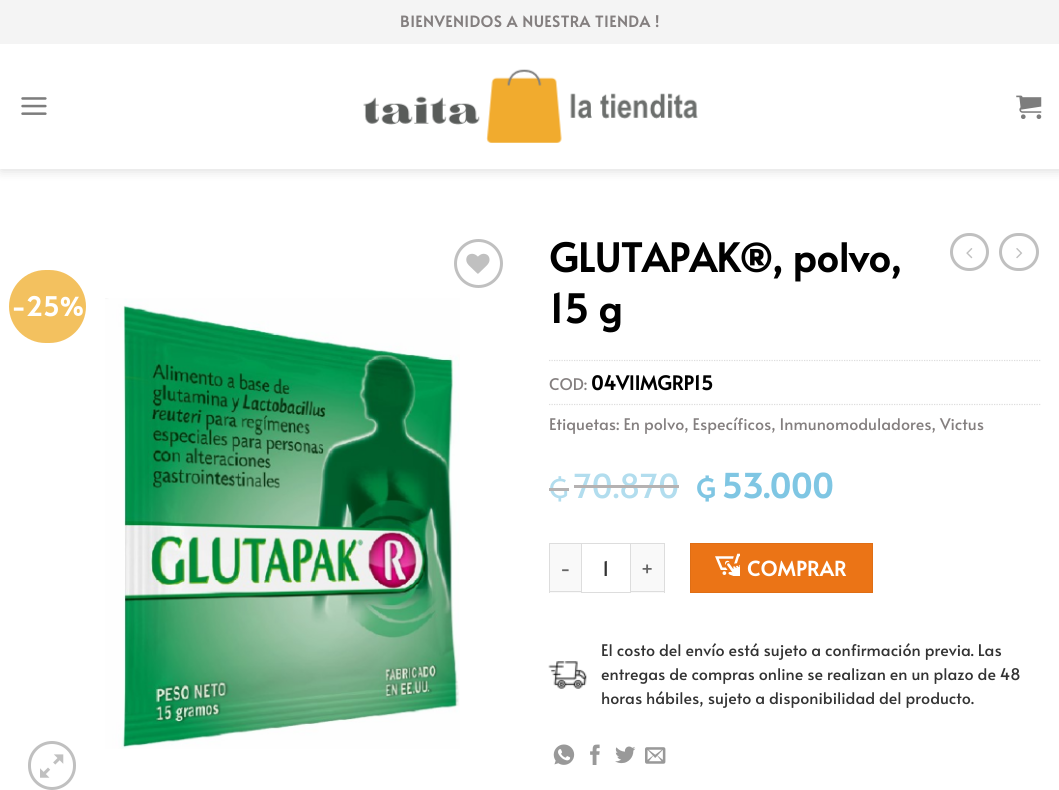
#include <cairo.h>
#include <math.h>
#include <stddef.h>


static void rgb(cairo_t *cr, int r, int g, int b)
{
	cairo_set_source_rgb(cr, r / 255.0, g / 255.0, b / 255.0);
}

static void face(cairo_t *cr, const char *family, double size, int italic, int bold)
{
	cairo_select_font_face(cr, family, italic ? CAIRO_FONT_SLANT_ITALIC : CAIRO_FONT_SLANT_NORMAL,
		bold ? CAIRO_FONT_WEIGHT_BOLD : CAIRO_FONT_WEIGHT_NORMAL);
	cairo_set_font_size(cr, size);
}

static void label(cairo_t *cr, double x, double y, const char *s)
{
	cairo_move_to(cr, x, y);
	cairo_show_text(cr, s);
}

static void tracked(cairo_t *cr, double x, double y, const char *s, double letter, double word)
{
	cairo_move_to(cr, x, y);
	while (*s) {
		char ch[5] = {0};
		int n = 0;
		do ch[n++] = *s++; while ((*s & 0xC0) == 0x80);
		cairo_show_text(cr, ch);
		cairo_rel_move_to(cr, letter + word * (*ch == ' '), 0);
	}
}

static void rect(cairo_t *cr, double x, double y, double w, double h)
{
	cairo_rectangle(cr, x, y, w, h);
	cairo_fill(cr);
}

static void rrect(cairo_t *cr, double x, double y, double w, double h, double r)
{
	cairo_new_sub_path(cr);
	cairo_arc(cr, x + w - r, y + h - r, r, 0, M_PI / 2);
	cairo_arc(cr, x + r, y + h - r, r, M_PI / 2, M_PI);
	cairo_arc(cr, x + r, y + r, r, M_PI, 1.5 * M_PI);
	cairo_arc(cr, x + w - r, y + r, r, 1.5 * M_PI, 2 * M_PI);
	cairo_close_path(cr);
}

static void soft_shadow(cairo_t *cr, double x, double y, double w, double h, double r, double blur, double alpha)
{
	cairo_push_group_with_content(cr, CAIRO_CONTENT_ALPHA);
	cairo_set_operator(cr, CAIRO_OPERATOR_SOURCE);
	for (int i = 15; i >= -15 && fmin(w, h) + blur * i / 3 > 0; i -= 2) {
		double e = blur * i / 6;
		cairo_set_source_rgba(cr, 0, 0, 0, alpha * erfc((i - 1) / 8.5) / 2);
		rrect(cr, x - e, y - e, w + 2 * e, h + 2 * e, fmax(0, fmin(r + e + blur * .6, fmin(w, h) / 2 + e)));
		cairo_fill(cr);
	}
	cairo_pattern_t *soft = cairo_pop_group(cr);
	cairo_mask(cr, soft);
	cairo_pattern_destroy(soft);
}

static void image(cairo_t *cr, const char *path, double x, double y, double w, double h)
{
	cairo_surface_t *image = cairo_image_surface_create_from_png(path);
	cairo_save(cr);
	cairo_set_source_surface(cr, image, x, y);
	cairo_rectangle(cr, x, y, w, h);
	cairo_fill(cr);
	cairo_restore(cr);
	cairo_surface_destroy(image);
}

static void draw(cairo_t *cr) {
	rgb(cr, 255, 255, 255);
	cairo_paint(cr);
	cairo_save(cr);
	cairo_set_fill_rule(cr, CAIRO_FILL_RULE_EVEN_ODD);
	cairo_new_path(cr);
	cairo_move_to(cr, 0, 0);
	cairo_line_to(cr, 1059, 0);
	cairo_line_to(cr, 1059, 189);
	cairo_line_to(cr, 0, 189);
	cairo_close_path(cr);
	cairo_move_to(cr, 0, 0);
	cairo_line_to(cr, 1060, 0);
	cairo_line_to(cr, 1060, 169);
	cairo_line_to(cr, 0, 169);
	cairo_close_path(cr);
	cairo_clip(cr);
	rgb(cr, 0, 0, 0);
	soft_shadow(cr, 1, 1, 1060, 169, 0, 6, 0.15);
	cairo_restore(cr);
	cairo_set_source_rgba(cr, 1, 1, 1, 0.9);
	rect(cr, 1, 168, 1058, 1);
	rgb(cr, 244, 244, 244);
	rect(cr, 0, 0, 1059, 44);
	face(cr, "Alata", 15, 0, 1);
	rgb(cr, 132, 127, 127);
	tracked(cr, 400, 27, "BIENVENIDOS A NUESTRA TIENDA !", 0.75, 0);
	image(cr, "image0.png", 21, 97, 26, 18);
	image(cr, "image1.png", 363, 69, 335, 74);
	image(cr, "image2.png", 1016, 95, 26, 24);
	cairo_arc(cr, 478.5, 263.5, 23, 0, 2 * M_PI);
	rgb(cr, 192, 192, 192);
	cairo_set_line_width(cr, 3);
	cairo_stroke(cr);
	image(cr, "image3.png", 466, 253, 24, 21);
	rgb(cr, 243, 193, 95);
	rrect(cr, 9, 270, 77, 73, 36.5);
	cairo_fill(cr);
	face(cr, "Alata", 26, 0, 1);
	rgb(cr, 255, 255, 255);
	label(cr, 11, 316, "-25%");
	image(cr, "image4.png", 105, 298, 355, 451);
	rrect(cr, 29.5, 742.5, 45, 46, 22.5);
	rgb(cr, 192, 192, 192);
	cairo_stroke(cr);
	image(cr, "image5.png", 40, 754, 24, 24);
	face(cr, "Alata", 39, 0, 1);
	rgb(cr, 0, 0, 0);
	label(cr, 549, 272, "GLUTAPAK®, polvo,");
	label(cr, 549, 323, "15 g");
	rrect(cr, 951.5, 234.5, 36, 35, 17.5);
	rgb(cr, 192, 192, 192);
	cairo_stroke(cr);
	image(cr, "image6.png", 966, 248, 7, 11);
	rrect(cr, 1000.5, 234.5, 37, 35, 17.5);
	cairo_stroke(cr);
	image(cr, "image7.png", 1016, 248, 7, 11);
	cairo_new_path(cr);
	cairo_move_to(cr, 549, 360.5);
	cairo_line_to(cr, 1041, 360.5);
	rgb(cr, 221, 221, 221);
	cairo_set_line_width(cr, 1.2);
	cairo_set_dash(cr, (double[]){1.25, 1.25}, 2, 0);
	cairo_stroke(cr);
	face(cr, "Alata", 16, 0, 0);
	rgb(cr, 132, 127, 127);
	label(cr, 549, 390, "COD:");
	face(cr, "Alata", 19.25, 0, 1);
	rgb(cr, 0, 0, 0);
	label(cr, 591, 390, "04VIIMGRP15");
	cairo_new_path(cr);
	cairo_move_to(cr, 549, 404.5);
	cairo_line_to(cr, 1041, 404.5);
	rgb(cr, 221, 221, 221);
	cairo_stroke(cr);
	face(cr, "Alata", 16, 0, 0);
	rgb(cr, 132, 127, 127);
	label(cr, 549, 430, "Etiquetas: En polvo, Específicos, Inmunomoduladores, Victus");
	face(cr, "Alata", 26, 0, 0);
	rgb(cr, 178, 221, 238);
	label(cr, 549, 498, "₲");
	rgb(cr, 181, 178, 178);
	rect(cr, 549, 488, 20, 3);
	face(cr, "Alata", 33, 0, 0);
	rgb(cr, 178, 221, 238);
	label(cr, 574, 498, "70.870");
	rgb(cr, 181, 178, 178);
	rect(cr, 574, 485, 105, 3);
	face(cr, "Alata", 26, 0, 1);
	rgb(cr, 127, 198, 227);
	label(cr, 696, 498, "₲");
	face(cr, "Alata", 33, 0, 1);
	label(cr, 721, 498, "53.000");
	rgb(cr, 249, 249, 249);
	rect(cr, 550, 544, 31, 49);
	rgb(cr, 221, 221, 221);
	rect(cr, 549, 543, 32, 1);
	rect(cr, 549, 591, 32, 1);
	rect(cr, 549, 543, 1, 50);
	face(cr, "Alata", 19, 0, 0);
	rgb(cr, 102, 102, 102);
	tracked(cr, 560, 575, "-", 1, 0);
	cairo_rectangle(cr, 581.5, 543.5, 49, 49);
	rgb(cr, 221, 221, 221);
	cairo_set_line_width(cr, 1);
	cairo_set_dash(cr, NULL, 0, 0);
	cairo_stroke(cr);
	face(cr, "Alata", 20, 0, 0);
	rgb(cr, 51, 51, 51);
	label(cr, 602, 576, "1");
	rgb(cr, 249, 249, 249);
	rect(cr, 631, 544, 33, 49);
	rgb(cr, 221, 221, 221);
	rect(cr, 631, 543, 34, 1);
	rect(cr, 664, 543, 1, 50);
	rect(cr, 631, 591, 34, 1);
	face(cr, "Alata", 19, 0, 0);
	rgb(cr, 102, 102, 102);
	tracked(cr, 641, 575, "+", 1, 0);
	rgb(cr, 235, 116, 22);
	cairo_rectangle(cr, 690.5, 543.5, 182, 49);
	cairo_fill_preserve(cr);
	rgb(cr, 223, 110, 21);
	cairo_stroke(cr);
	image(cr, "image8.png", 715, 553, 25, 23);
	face(cr, "Alata", 20, 0, 1);
	rgb(cr, 255, 255, 255);
	tracked(cr, 747, 576, "COMPRAR", 0.5, 0);
	image(cr, "image9.png", 548, 661, 39, 28);
	face(cr, "Alata", 16, 0, 0);
	rgb(cr, 51, 51, 51);
	label(cr, 601, 656, "El costo del envío está sujeto a confirmación previa. Las");
	label(cr, 601, 680, "entregas de compras online se realizan en un plazo de 48");
	label(cr, 601, 704, "horas hábiles, sujeto a disponibilidad del producto.");
	image(cr, "image10.png", 553, 744, 22, 21);
	image(cr, "image11.png", 590, 744, 10, 21);
	image(cr, "image12.png", 615, 746, 21, 18);
	image(cr, "image13.png", 645, 747, 21, 17);
}

int main(void) {
	cairo_surface_t *surface = cairo_image_surface_create(CAIRO_FORMAT_RGB24, 1059, 790);
	cairo_t *cr = cairo_create(surface);
	cairo_font_options_t *options = cairo_font_options_create();
	cairo_font_options_set_hint_metrics(options, CAIRO_HINT_METRICS_OFF);
	cairo_font_options_set_hint_style(options, CAIRO_HINT_STYLE_NONE);
	cairo_set_font_options(cr, options);
	cairo_set_miter_limit(cr, 4);
	draw(cr);
	cairo_surface_write_to_png(surface, "render.png");
	cairo_font_options_destroy(options);
	cairo_destroy(cr);
	cairo_surface_destroy(surface);
	return 0;
}
